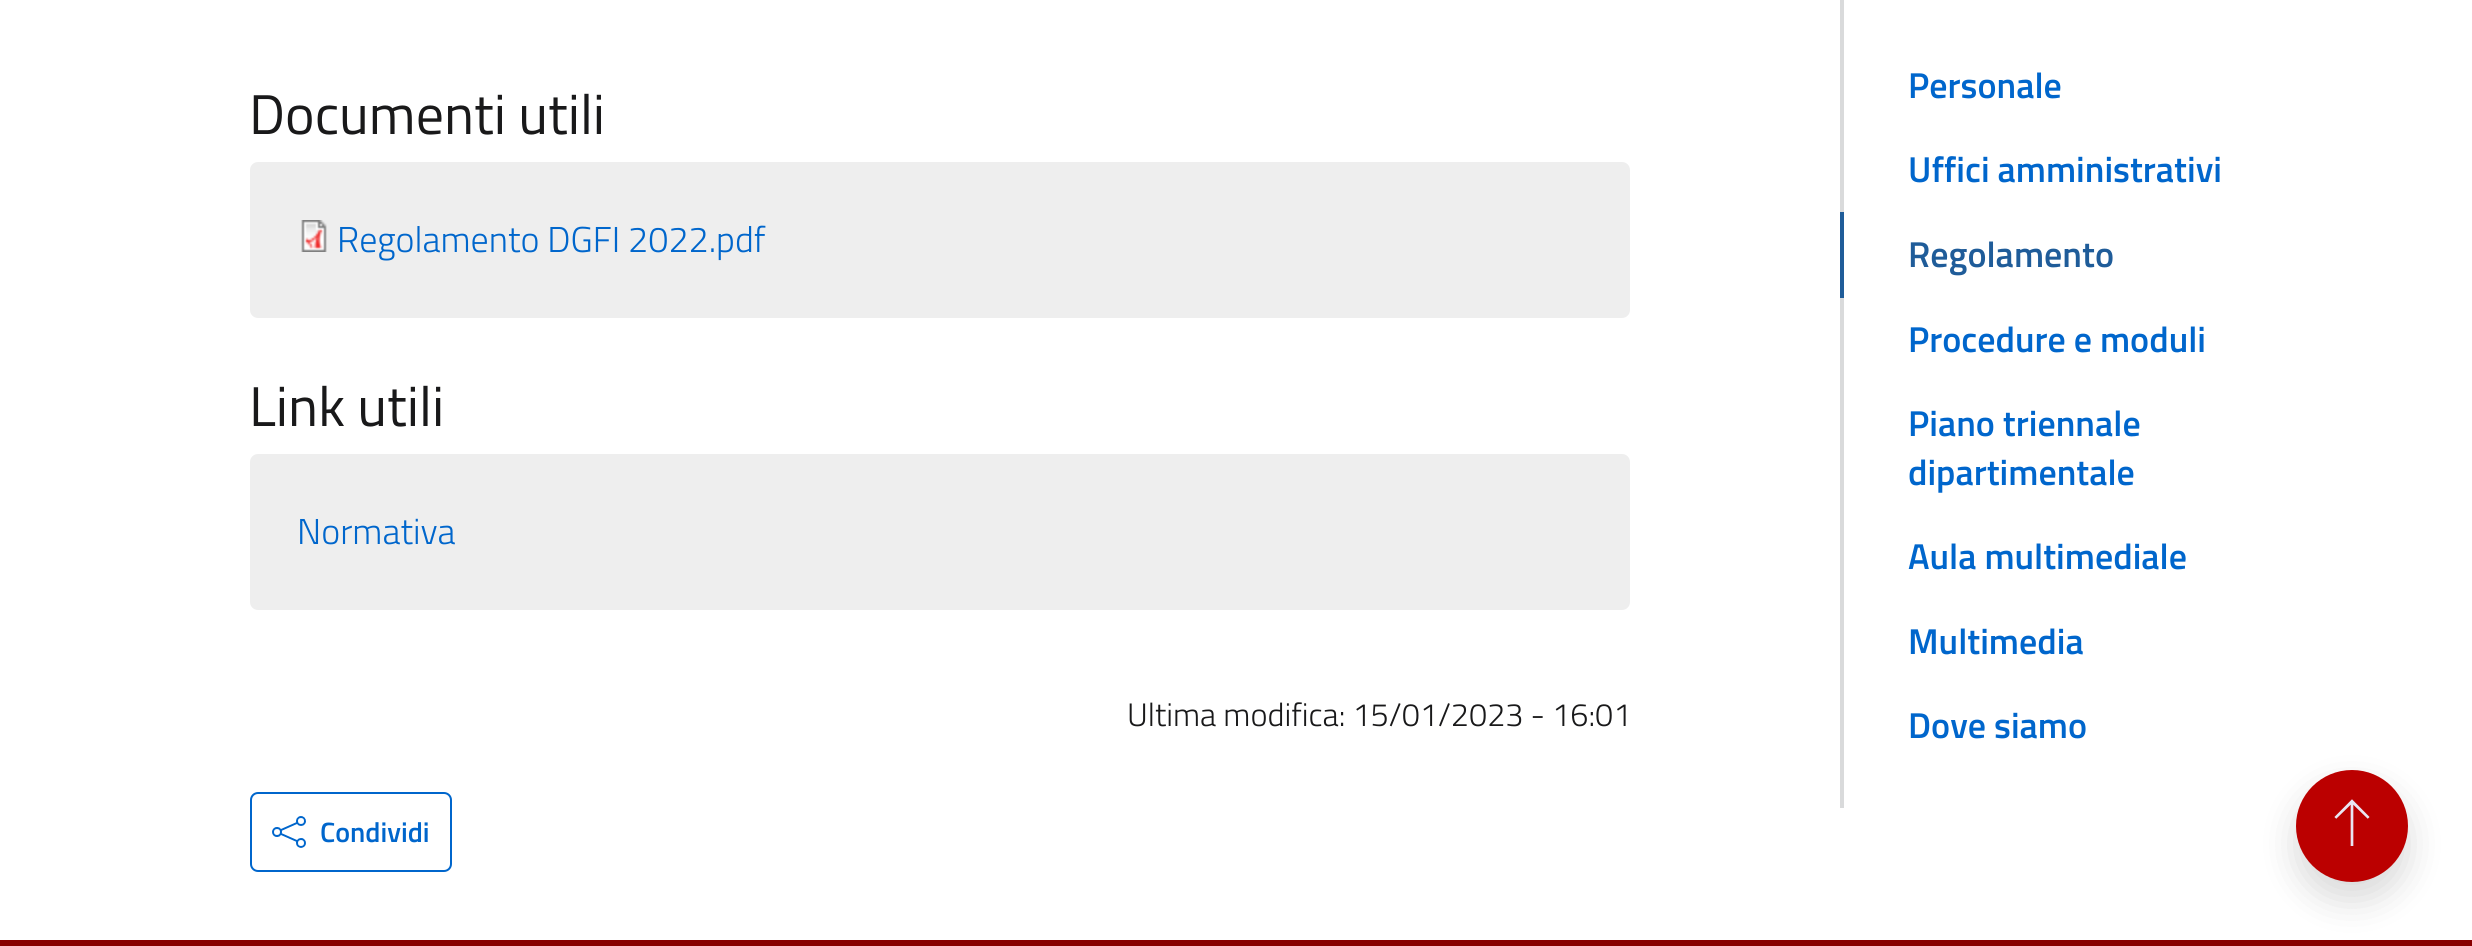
#include <cairo.h>
#include <math.h>
#include <stddef.h>


static void rgb(cairo_t *cr, int r, int g, int b)
{
	cairo_set_source_rgb(cr, r / 255.0, g / 255.0, b / 255.0);
}

static void face(cairo_t *cr, const char *family, double size, int italic, int bold)
{
	cairo_select_font_face(cr, family, italic ? CAIRO_FONT_SLANT_ITALIC : CAIRO_FONT_SLANT_NORMAL,
		bold ? CAIRO_FONT_WEIGHT_BOLD : CAIRO_FONT_WEIGHT_NORMAL);
	cairo_set_font_size(cr, size);
}

static void label(cairo_t *cr, double x, double y, const char *s)
{
	cairo_move_to(cr, x, y);
	cairo_show_text(cr, s);
}

static void rect(cairo_t *cr, double x, double y, double w, double h)
{
	cairo_rectangle(cr, x, y, w, h);
	cairo_fill(cr);
}

static void rrect(cairo_t *cr, double x, double y, double w, double h, double r)
{
	cairo_new_sub_path(cr);
	cairo_arc(cr, x + w - r, y + h - r, r, 0, M_PI / 2);
	cairo_arc(cr, x + r, y + h - r, r, M_PI / 2, M_PI);
	cairo_arc(cr, x + r, y + r, r, M_PI, 1.5 * M_PI);
	cairo_arc(cr, x + w - r, y + r, r, 1.5 * M_PI, 2 * M_PI);
	cairo_close_path(cr);
}

static void soft_shadow(cairo_t *cr, double x, double y, double w, double h, double r, double blur, double alpha)
{
	cairo_push_group_with_content(cr, CAIRO_CONTENT_ALPHA);
	cairo_set_operator(cr, CAIRO_OPERATOR_SOURCE);
	for (int i = 15; i >= -15 && fmin(w, h) + blur * i / 3 > 0; i -= 2) {
		double e = blur * i / 6;
		cairo_set_source_rgba(cr, 0, 0, 0, alpha * erfc((i - 1) / 8.5) / 2);
		rrect(cr, x - e, y - e, w + 2 * e, h + 2 * e, fmax(0, fmin(r + e + blur * .6, fmin(w, h) / 2 + e)));
		cairo_fill(cr);
	}
	cairo_pattern_t *soft = cairo_pop_group(cr);
	cairo_mask(cr, soft);
	cairo_pattern_destroy(soft);
}

static void image(cairo_t *cr, const char *path, double x, double y, double w, double h)
{
	cairo_surface_t *image = cairo_image_surface_create_from_png(path);
	cairo_save(cr);
	cairo_set_source_surface(cr, image, x, y);
	cairo_rectangle(cr, x, y, w, h);
	cairo_fill(cr);
	cairo_restore(cr);
	cairo_surface_destroy(image);
}

static void draw(cairo_t *cr) {
	rgb(cr, 255, 255, 255);
	cairo_paint(cr);
	face(cr, "Titillium Web", 56, 0, 0);
	rgb(cr, 25, 25, 26);
	label(cr, 249, 134, "Documenti utili");
	rgb(cr, 238, 238, 238);
	rrect(cr, 250, 162, 1380, 156, 8);
	cairo_fill(cr);
	image(cr, "image0.png", 301, 220, 26, 32);
	face(cr, "Titillium Web Light", 36, 0, 0);
	rgb(cr, 0, 102, 204);
	label(cr, 337, 252, "Regolamento DGFI 2022.pdf");
	face(cr, "Titillium Web", 56, 0, 0);
	rgb(cr, 25, 25, 26);
	label(cr, 249, 426, "Link utili");
	rgb(cr, 238, 238, 238);
	rrect(cr, 250, 454, 1380, 156, 8);
	cairo_fill(cr);
	face(cr, "Titillium Web Light", 36, 0, 0);
	rgb(cr, 0, 102, 204);
	label(cr, 297, 544, "Normativa");
	face(cr, "Titillium Web Light", 32.4, 0, 0);
	rgb(cr, 25, 25, 26);
	label(cr, 1127, 726, "Ultima modifica: 15/01/2023 - 16:01");
	rrect(cr, 251, 793, 200, 78, 7);
	rgb(cr, 0, 102, 204);
	cairo_stroke(cr);
	image(cr, "image1.png", 272, 816, 34, 32);
	face(cr, "Titillium Web SemiBold", 28, 0, 0);
	label(cr, 320, 842, "Condividi");
	rgb(cr, 217, 218, 219);
	rect(cr, 1840, 0, 4, 808);
	face(cr, "Titillium Web SemiBold", 36, 0, 0);
	rgb(cr, 0, 102, 204);
	label(cr, 1908, 98, "Personale");
	label(cr, 1908, 182, "Uffici amministrativi");
	rgb(cr, 31, 92, 153);
	rect(cr, 1840, 212, 4, 86);
	label(cr, 1908, 267, "Regolamento");
	rgb(cr, 0, 102, 204);
	label(cr, 1908, 352, "Procedure e moduli");
	label(cr, 1908, 436, "Piano triennale");
	label(cr, 1908, 485, "dipartimentale");
	label(cr, 1908, 569, "Aula multimediale");
	label(cr, 1908, 654, "Multimedia");
	label(cr, 1908, 738, "Dove siamo");
	rgb(cr, 136, 0, 0);
	rect(cr, 0, 940, 2472, 6);
	rgb(cr, 0, 0, 0);
	soft_shadow(cr, 2296, 788, 112, 112, 56, 18, 0.15);
	rgb(cr, 187, 0, 0);
	cairo_arc(cr, 2352, 826, 56, 0, 2 * M_PI);
	cairo_fill(cr);
	image(cr, "image2.png", 2334, 799, 36, 47);
}

int main(void) {
	cairo_surface_t *surface = cairo_image_surface_create(CAIRO_FORMAT_RGB24, 2472, 946);
	cairo_t *cr = cairo_create(surface);
	cairo_font_options_t *options = cairo_font_options_create();
	cairo_font_options_set_hint_metrics(options, CAIRO_HINT_METRICS_OFF);
	cairo_font_options_set_hint_style(options, CAIRO_HINT_STYLE_NONE);
	cairo_set_font_options(cr, options);
	cairo_set_miter_limit(cr, 4);
	draw(cr);
	cairo_surface_write_to_png(surface, "render.png");
	cairo_font_options_destroy(options);
	cairo_destroy(cr);
	cairo_surface_destroy(surface);
	return 0;
}
